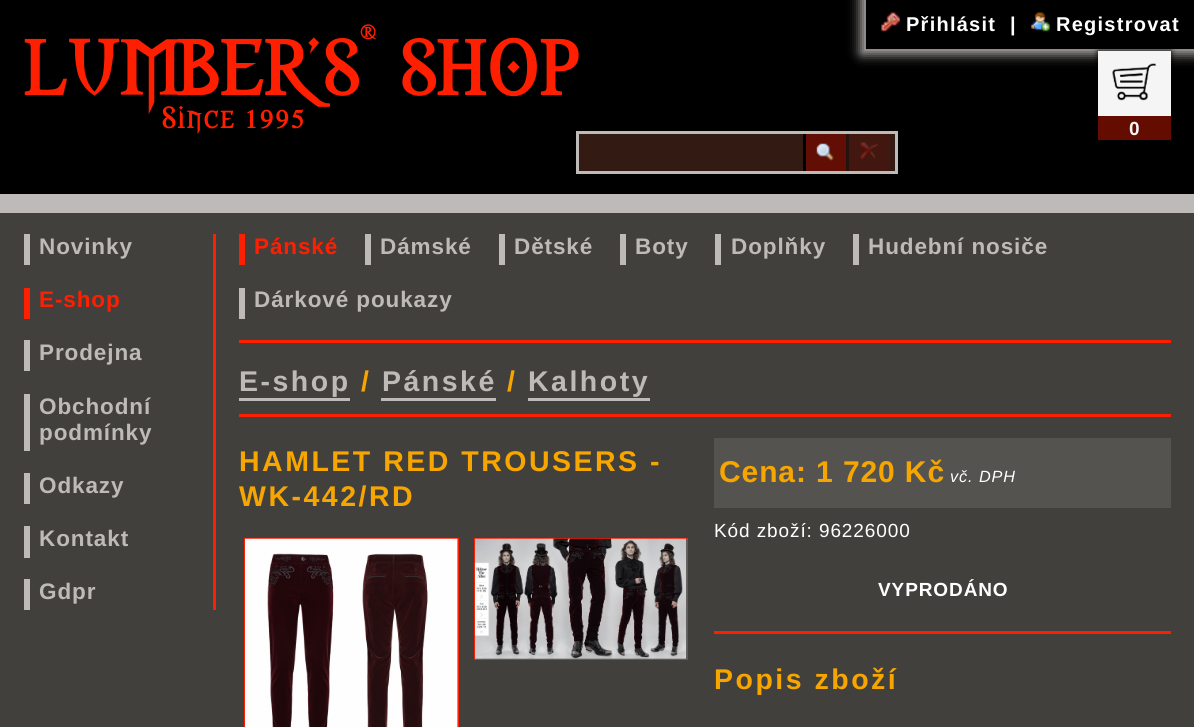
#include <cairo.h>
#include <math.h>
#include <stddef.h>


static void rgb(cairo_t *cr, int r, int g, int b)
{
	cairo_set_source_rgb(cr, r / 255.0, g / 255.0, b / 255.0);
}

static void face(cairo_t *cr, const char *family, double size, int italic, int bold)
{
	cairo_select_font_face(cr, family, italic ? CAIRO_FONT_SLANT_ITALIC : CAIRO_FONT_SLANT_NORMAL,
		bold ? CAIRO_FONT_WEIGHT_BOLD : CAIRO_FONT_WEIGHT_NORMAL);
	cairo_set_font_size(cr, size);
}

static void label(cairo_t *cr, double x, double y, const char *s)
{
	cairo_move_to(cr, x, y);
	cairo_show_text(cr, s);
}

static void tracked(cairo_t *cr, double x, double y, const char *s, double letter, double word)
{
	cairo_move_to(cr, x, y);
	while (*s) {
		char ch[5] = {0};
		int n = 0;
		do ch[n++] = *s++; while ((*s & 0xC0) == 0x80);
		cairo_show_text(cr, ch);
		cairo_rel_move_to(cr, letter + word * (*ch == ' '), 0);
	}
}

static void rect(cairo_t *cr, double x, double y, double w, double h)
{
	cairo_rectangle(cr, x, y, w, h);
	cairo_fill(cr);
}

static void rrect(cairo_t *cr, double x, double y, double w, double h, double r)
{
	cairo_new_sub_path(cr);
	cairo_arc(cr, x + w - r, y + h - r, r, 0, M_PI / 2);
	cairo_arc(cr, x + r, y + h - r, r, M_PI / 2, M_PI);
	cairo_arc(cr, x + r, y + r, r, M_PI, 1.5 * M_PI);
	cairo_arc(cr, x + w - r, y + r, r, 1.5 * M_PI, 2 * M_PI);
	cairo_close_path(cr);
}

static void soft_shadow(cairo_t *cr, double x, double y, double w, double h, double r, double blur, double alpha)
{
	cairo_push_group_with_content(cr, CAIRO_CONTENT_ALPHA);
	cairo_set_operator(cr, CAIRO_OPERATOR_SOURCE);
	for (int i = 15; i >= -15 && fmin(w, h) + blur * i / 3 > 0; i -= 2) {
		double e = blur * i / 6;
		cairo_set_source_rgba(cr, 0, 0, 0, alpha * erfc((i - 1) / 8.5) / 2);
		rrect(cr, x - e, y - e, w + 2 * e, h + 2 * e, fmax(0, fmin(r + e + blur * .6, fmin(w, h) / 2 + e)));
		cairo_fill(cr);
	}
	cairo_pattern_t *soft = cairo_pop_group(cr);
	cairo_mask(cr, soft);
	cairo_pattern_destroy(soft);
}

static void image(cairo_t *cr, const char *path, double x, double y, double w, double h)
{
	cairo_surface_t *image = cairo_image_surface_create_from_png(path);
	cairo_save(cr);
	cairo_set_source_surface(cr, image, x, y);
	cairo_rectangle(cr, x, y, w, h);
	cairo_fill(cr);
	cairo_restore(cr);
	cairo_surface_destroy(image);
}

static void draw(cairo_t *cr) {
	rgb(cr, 66, 64, 61);
	cairo_paint(cr);
	rgb(cr, 0, 0, 0);
	rect(cr, 0, 0, 1194, 194);
	rgb(cr, 189, 186, 183);
	rect(cr, 0, 194, 1194, 19);
	face(cr, "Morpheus", 22, 0, 1);
	rgb(cr, 254, 31, 1);
	tracked(cr, 360, 39, "®", 2.5, 0);
	face(cr, "Morpheus", 72, 0, 1);
	tracked(cr, 24, 95, "LUMBER'S", 2.5, 0);
	tracked(cr, 398, 95, "SHOP", 2.5, 0);
	face(cr, "Morpheus", 27.5, 0, 1);
	tracked(cr, 161, 128, "Since 1995", 2.5, 0);
	cairo_save(cr);
	cairo_set_fill_rule(cr, CAIRO_FILL_RULE_EVEN_ODD);
	cairo_new_path(cr);
	cairo_move_to(cr, 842, 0);
	cairo_line_to(cr, 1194, 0);
	cairo_line_to(cr, 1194, 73);
	cairo_line_to(cr, 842, 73);
	cairo_close_path(cr);
	cairo_move_to(cr, 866, 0);
	cairo_line_to(cr, 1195, 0);
	cairo_line_to(cr, 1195, 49);
	cairo_line_to(cr, 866, 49);
	cairo_close_path(cr);
	cairo_clip(cr);
	rgb(cr, 189, 186, 183);
	soft_shadow(cr, 861, -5, 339, 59, 0, 6, 1);
	cairo_restore(cr);
	image(cr, "image0.png", 881, 12, 19, 20);
	face(cr, "Liberation Sans", 20, 0, 1);
	rgb(cr, 255, 255, 255);
	tracked(cr, 906, 31, "Přihlásit", 1.25, 0);
	tracked(cr, 1010, 31, "|", 1.25, 0);
	image(cr, "image1.png", 1031, 12, 19, 20);
	tracked(cr, 1056, 31, "Registrovat", 1.25, 0);
	rgb(cr, 51, 27, 20);
	cairo_rectangle(cr, 577.5, 132.5, 319, 40);
	cairo_fill_preserve(cr);
	rgb(cr, 189, 186, 183);
	cairo_set_line_width(cr, 3);
	cairo_stroke(cr);
	rgb(cr, 99, 14, 4);
	rect(cr, 806, 134, 40, 37);
	rgb(cr, 0, 0, 0);
	rect(cr, 803, 134, 3, 37);
	image(cr, "image2.png", 816, 143, 18, 18);
	cairo_save(cr);
	rrect(cr, 579, 134, 316, 37, 9);
	cairo_clip(cr);
	rgb(cr, 65, 23, 15);
	rect(cr, 849, 134, 41, 37);
	cairo_restore(cr);
	rgb(cr, 36, 19, 14);
	rect(cr, 846, 134, 3, 37);
	image(cr, "image3.png", 860, 142, 18, 18);
	rgb(cr, 0, 0, 0);
	soft_shadow(cr, 1098, 51, 73, 89, 0, 3, 1);
	rgb(cr, 245, 245, 245);
	rect(cr, 1098, 51, 73, 65);
	image(cr, "image4.png", 1112, 63, 44, 38);
	rgb(cr, 101, 12, 1);
	rect(cr, 1098, 116, 73, 24);
	face(cr, "Liberation Sans", 19, 0, 1);
	rgb(cr, 245, 245, 245);
	label(cr, 1129, 135, "0");
	rgb(cr, 254, 31, 1);
	rect(cr, 213, 234, 3, 376);
	rgb(cr, 189, 186, 183);
	rect(cr, 24, 234, 6, 31);
	face(cr, "Liberation Sans", 22.5, 0, 1);
	tracked(cr, 39, 254, "Novinky", 0.9, 0);
	rgb(cr, 254, 31, 1);
	rect(cr, 24, 288, 6, 31);
	tracked(cr, 39, 307, "E-shop", 0.9, 0);
	rgb(cr, 189, 186, 183);
	rect(cr, 24, 340, 6, 31);
	tracked(cr, 39, 360, "Prodejna", 0.9, 0);
	rect(cr, 24, 394, 6, 57);
	tracked(cr, 39, 414, "Obchodní", 0.9, 0);
	tracked(cr, 39, 440, "podmínky", 0.9, 0);
	rect(cr, 24, 473, 6, 31);
	tracked(cr, 39, 493, "Odkazy", 0.9, 0);
	rect(cr, 24, 526, 6, 32);
	tracked(cr, 39, 546, "Kontakt", 0.9, 0);
	rect(cr, 24, 579, 6, 31);
	tracked(cr, 39, 599, "Gdpr", 0.9, 0);
	rgb(cr, 254, 31, 1);
	rect(cr, 239, 340, 932, 3);
	rect(cr, 239, 234, 6, 31);
	tracked(cr, 254, 254, "Pánské", 0.9, 0);
	rgb(cr, 189, 186, 183);
	rect(cr, 365, 234, 6, 31);
	tracked(cr, 380, 254, "Dámské", 0.9, 0);
	rect(cr, 499, 234, 6, 31);
	tracked(cr, 514, 254, "Dětské", 0.9, 0);
	rect(cr, 620, 234, 6, 31);
	tracked(cr, 635, 254, "Boty", 0.9, 0);
	rect(cr, 715, 234, 6, 31);
	tracked(cr, 731, 254, "Doplňky", 0.9, 0);
	rect(cr, 853, 234, 6, 31);
	tracked(cr, 868, 254, "Hudební nosiče", 0.9, 0);
	rect(cr, 239, 288, 6, 31);
	tracked(cr, 254, 307, "Dárkové poukazy", 0.9, 0);
	rgb(cr, 254, 31, 1);
	rect(cr, 239, 414, 932, 3);
	face(cr, "Liberation Sans", 28.5, 0, 1);
	rgb(cr, 189, 186, 183);
	tracked(cr, 239, 391, "E-shop", 2.5, 0);
	rect(cr, 239, 398, 111, 3);
	rgb(cr, 247, 166, 0);
	tracked(cr, 361, 391, "/", 2.5, 0);
	rgb(cr, 189, 186, 183);
	tracked(cr, 382, 391, "Pánské", 2.5, 0);
	rect(cr, 381, 398, 115, 3);
	rgb(cr, 247, 166, 0);
	tracked(cr, 507, 391, "/", 2.5, 0);
	rgb(cr, 189, 186, 183);
	tracked(cr, 528, 391, "Kalhoty", 2.5, 0);
	rect(cr, 528, 398, 122, 3);
	rgb(cr, 247, 166, 0);
	tracked(cr, 239, 471, "HAMLET RED TROUSERS -", 2.5, 0);
	tracked(cr, 239, 506, "WK-442/RD", 2.5, 0);
	cairo_rectangle(cr, 244.5, 538.5, 214, 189);
	rgb(cr, 254, 31, 1);
	cairo_set_line_width(cr, 1);
	cairo_stroke(cr);
	image(cr, "image5.png", 245, 538, 213, 189);
	cairo_rectangle(cr, 474.5, 538.5, 213, 121);
	cairo_stroke(cr);
	image(cr, "image6.png", 475, 538, 212, 121);
	rect(cr, 714, 631, 457, 3);
	rgb(cr, 85, 83, 80);
	rect(cr, 714, 438, 457, 70);
	face(cr, "Liberation Sans", 30, 0, 1);
	rgb(cr, 247, 166, 0);
	tracked(cr, 719, 482, "Cena: 1 720 Kč", 0.9, 0);
	face(cr, "Liberation Sans", 16.25, 1, 0);
	rgb(cr, 255, 255, 255);
	tracked(cr, 950, 482, "vč. DPH", 0.9, 0);
	face(cr, "Liberation Sans", 19, 0, 0);
	tracked(cr, 714, 537, "Kód zboží: 96226000", 0.9, 0);
	face(cr, "Liberation Sans", 19, 0, 1);
	tracked(cr, 878, 596, "VYPRODÁNO", 0.9, 0);
	face(cr, "Liberation Sans", 28.5, 0, 1);
	rgb(cr, 247, 166, 0);
	tracked(cr, 714, 689, "Popis zboží", 2.5, 0);
}

int main(void) {
	cairo_surface_t *surface = cairo_image_surface_create(CAIRO_FORMAT_RGB24, 1194, 727);
	cairo_t *cr = cairo_create(surface);
	cairo_font_options_t *options = cairo_font_options_create();
	cairo_font_options_set_hint_metrics(options, CAIRO_HINT_METRICS_OFF);
	cairo_font_options_set_hint_style(options, CAIRO_HINT_STYLE_NONE);
	cairo_set_font_options(cr, options);
	cairo_set_miter_limit(cr, 4);
	draw(cr);
	cairo_surface_write_to_png(surface, "render.png");
	cairo_font_options_destroy(options);
	cairo_destroy(cr);
	cairo_surface_destroy(surface);
	return 0;
}
